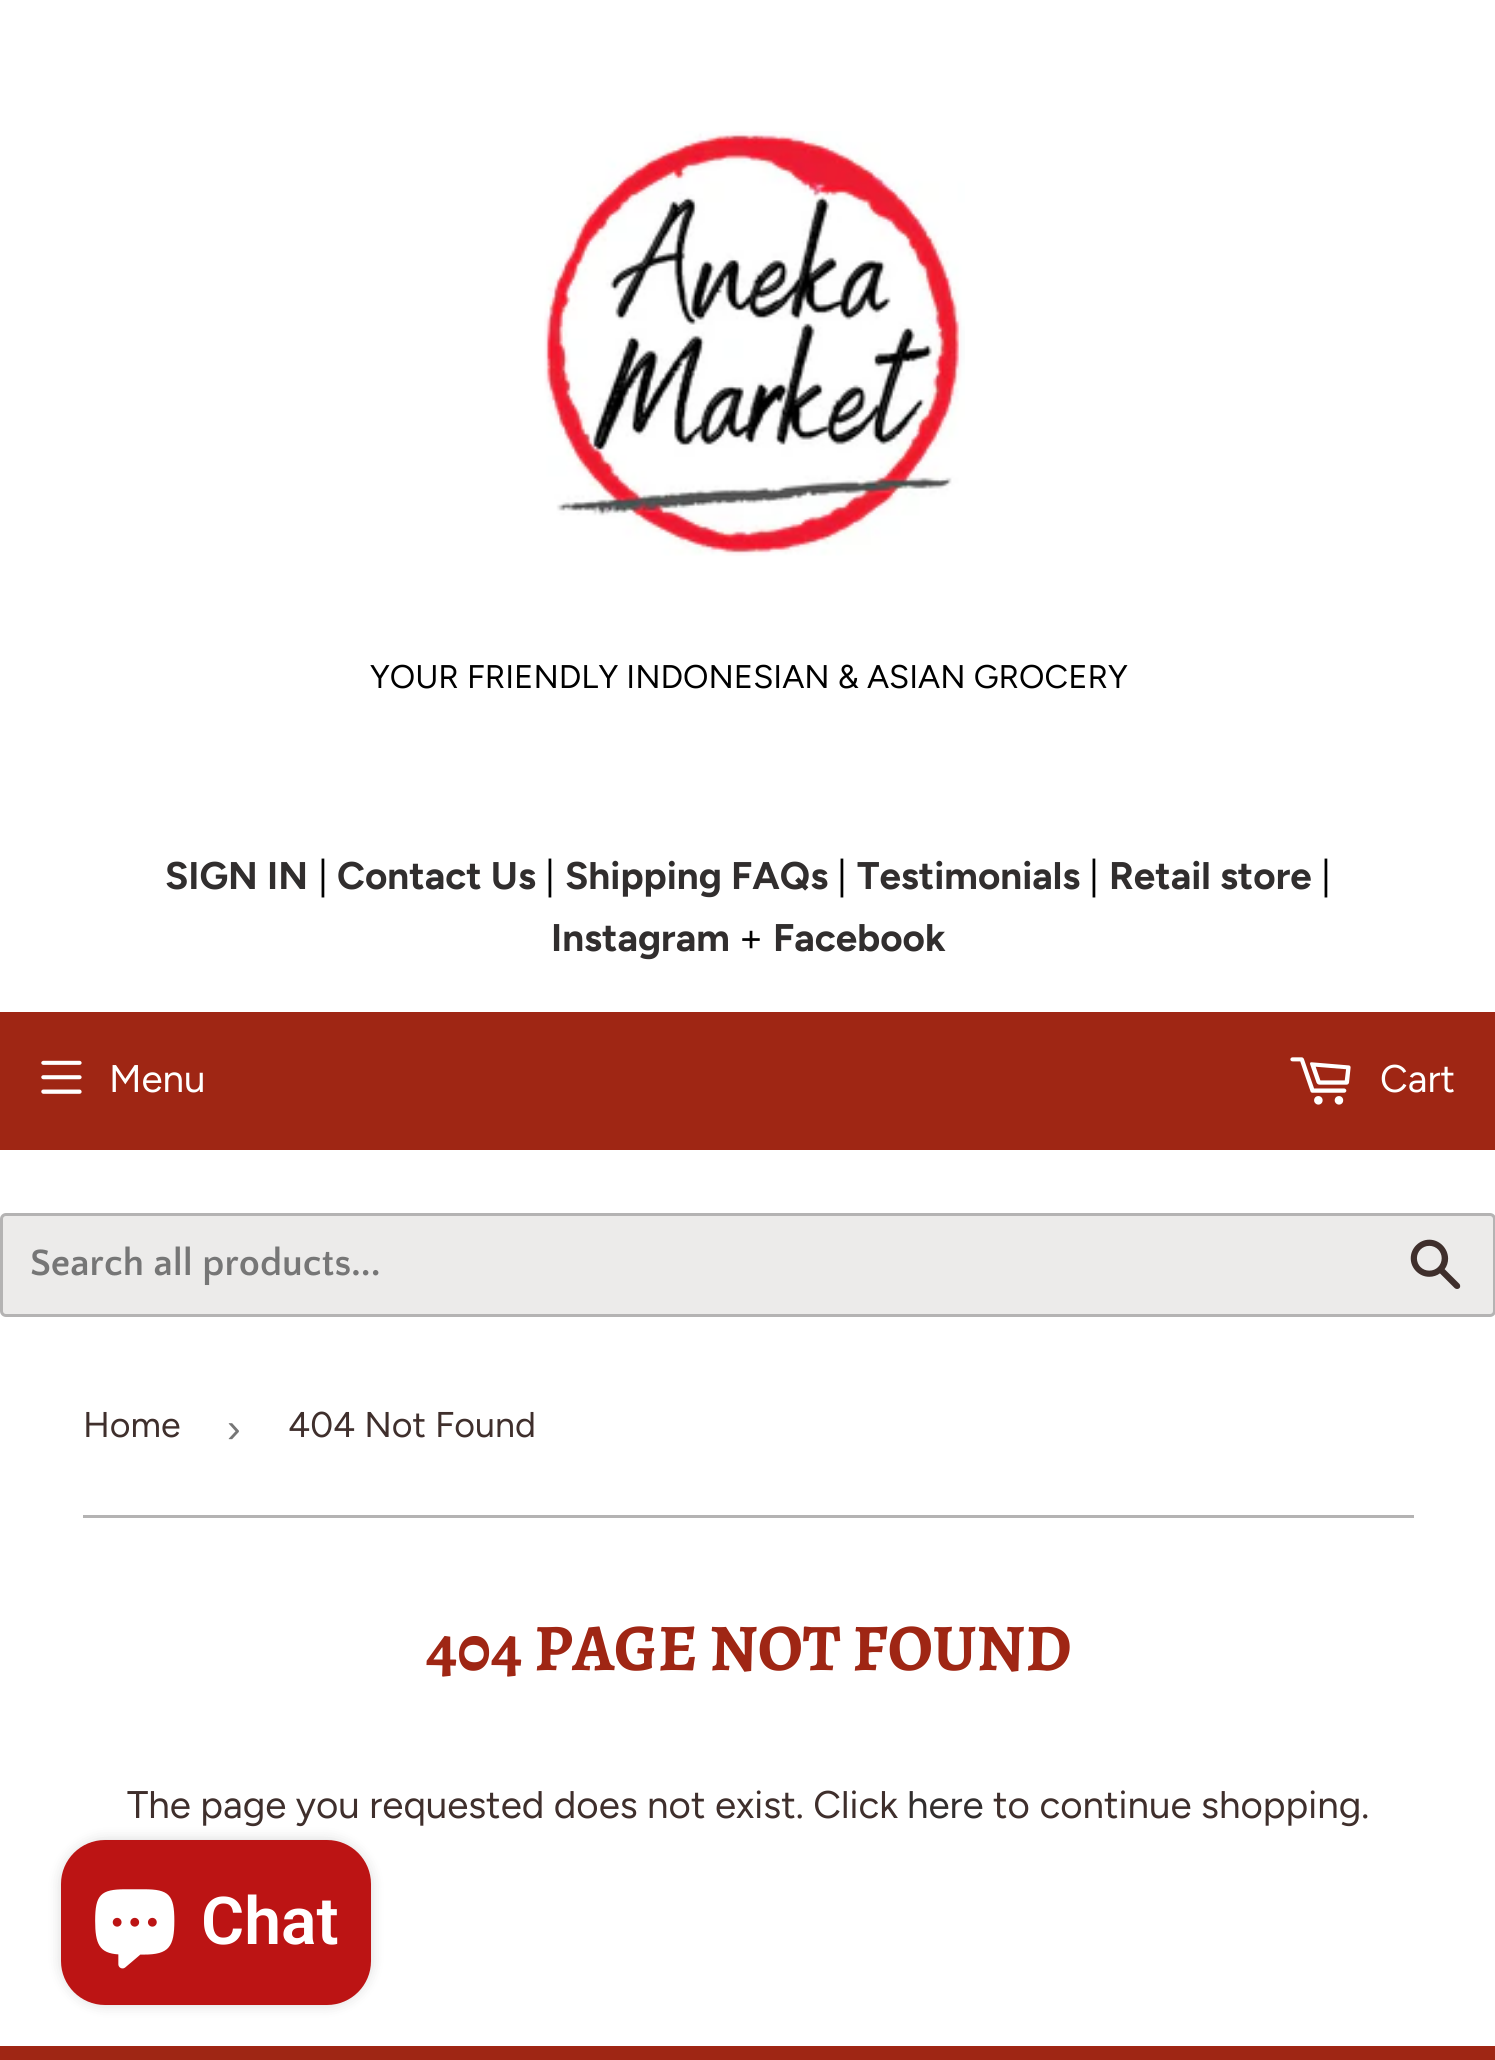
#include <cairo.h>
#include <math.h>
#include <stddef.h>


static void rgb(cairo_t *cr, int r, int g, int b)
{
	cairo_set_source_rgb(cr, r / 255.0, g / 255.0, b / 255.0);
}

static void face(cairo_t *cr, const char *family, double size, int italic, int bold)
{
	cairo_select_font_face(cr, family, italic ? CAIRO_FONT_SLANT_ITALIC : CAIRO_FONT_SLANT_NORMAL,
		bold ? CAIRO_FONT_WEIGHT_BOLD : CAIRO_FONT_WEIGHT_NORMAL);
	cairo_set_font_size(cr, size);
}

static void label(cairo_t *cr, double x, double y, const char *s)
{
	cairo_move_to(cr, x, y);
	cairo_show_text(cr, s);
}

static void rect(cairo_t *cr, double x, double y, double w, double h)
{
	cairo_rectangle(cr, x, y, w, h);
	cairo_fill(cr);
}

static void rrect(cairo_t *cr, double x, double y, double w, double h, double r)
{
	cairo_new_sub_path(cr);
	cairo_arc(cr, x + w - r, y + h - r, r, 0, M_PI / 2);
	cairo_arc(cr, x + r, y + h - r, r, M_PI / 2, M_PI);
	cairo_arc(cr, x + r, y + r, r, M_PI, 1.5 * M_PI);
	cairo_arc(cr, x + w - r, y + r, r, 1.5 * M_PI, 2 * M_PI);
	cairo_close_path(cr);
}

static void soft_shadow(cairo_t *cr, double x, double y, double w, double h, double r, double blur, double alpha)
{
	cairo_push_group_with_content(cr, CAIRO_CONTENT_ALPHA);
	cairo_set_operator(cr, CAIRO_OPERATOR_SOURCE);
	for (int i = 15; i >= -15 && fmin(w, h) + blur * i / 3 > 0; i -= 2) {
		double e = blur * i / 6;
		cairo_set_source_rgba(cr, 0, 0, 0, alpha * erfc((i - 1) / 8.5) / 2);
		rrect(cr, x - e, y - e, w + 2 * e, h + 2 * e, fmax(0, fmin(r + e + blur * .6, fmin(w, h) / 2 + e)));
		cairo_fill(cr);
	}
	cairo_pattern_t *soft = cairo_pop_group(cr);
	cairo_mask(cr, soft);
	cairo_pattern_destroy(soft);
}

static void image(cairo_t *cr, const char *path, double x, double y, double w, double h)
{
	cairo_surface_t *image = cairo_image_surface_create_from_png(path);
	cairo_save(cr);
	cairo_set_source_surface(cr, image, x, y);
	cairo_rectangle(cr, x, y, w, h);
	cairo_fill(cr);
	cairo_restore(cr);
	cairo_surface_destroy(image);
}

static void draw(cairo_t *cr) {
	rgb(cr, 255, 255, 255);
	cairo_paint(cr);
	image(cr, "image0.png", 544, 131, 421, 425);
	face(cr, "Figtree", 32.75, 0, 0);
	rgb(cr, 0, 0, 0);
	label(cr, 370, 688, "YOUR FRIENDLY INDONESIAN & ASIAN GROCERY");
	face(cr, "Figtree", 38.5, 0, 1);
	rgb(cr, 49, 46, 46);
	label(cr, 165, 889, "SIGN IN");
	face(cr, "Figtree", 38.5, 0, 0);
	rgb(cr, 0, 0, 0);
	label(cr, 318, 889, "|");
	face(cr, "Figtree", 38.5, 0, 1);
	rgb(cr, 49, 46, 46);
	label(cr, 337, 889, "Contact Us");
	face(cr, "Figtree", 38.5, 0, 0);
	rgb(cr, 0, 0, 0);
	label(cr, 545, 889, "|");
	face(cr, "Figtree", 38.5, 0, 1);
	rgb(cr, 49, 46, 46);
	label(cr, 565, 889, "Shipping FAQs");
	face(cr, "Figtree", 38.5, 0, 0);
	rgb(cr, 0, 0, 0);
	label(cr, 837, 889, "|");
	face(cr, "Figtree", 38.5, 0, 1);
	rgb(cr, 49, 46, 46);
	label(cr, 857, 889, "Testimonials");
	face(cr, "Figtree", 38.5, 0, 0);
	rgb(cr, 0, 0, 0);
	label(cr, 1089, 889, "|");
	face(cr, "Figtree", 38.5, 0, 1);
	rgb(cr, 49, 46, 46);
	label(cr, 1109, 889, "Retail store");
	face(cr, "Figtree", 38.5, 0, 0);
	rgb(cr, 0, 0, 0);
	label(cr, 1321, 889, "|");
	face(cr, "Figtree", 38.5, 0, 1);
	rgb(cr, 49, 46, 46);
	label(cr, 551, 951, "Instagram");
	face(cr, "Figtree", 38.5, 0, 0);
	rgb(cr, 0, 0, 0);
	label(cr, 739, 951, "+");
	face(cr, "Figtree", 38.5, 0, 1);
	rgb(cr, 49, 46, 46);
	label(cr, 773, 951, "Facebook");
	rgb(cr, 159, 38, 20);
	rect(cr, 0, 1012, 1495, 138);
	image(cr, "image1.png", 41, 1060, 41, 34);
	face(cr, "Figtree", 38.5, 0, 0);
	rgb(cr, 255, 255, 255);
	label(cr, 109, 1092, "Menu");
	image(cr, "image2.png", 1290, 1057, 61, 48);
	label(cr, 1380, 1092, "Cart");
	rgb(cr, 236, 235, 234);
	rrect(cr, 1.5, 1214.5, 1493, 101, 4.5);
	cairo_fill_preserve(cr);
	rgb(cr, 180, 179, 179);
	cairo_set_line_width(cr, 3);
	cairo_stroke(cr);
	face(cr, "Quattrocento Sans", 38.5, 0, 1);
	rgb(cr, 118, 118, 118);
	label(cr, 30, 1275, "Search all products...");
	image(cr, "image3.png", 1410, 1239, 51, 50);
	rgb(cr, 180, 179, 179);
	rect(cr, 83, 1515, 1331, 3);
	face(cr, "Figtree", 35.75, 0, 0);
	rgb(cr, 63, 47, 44);
	label(cr, 83, 1437, "Home");
	face(cr, "Liberation Sans", 41, 0, 0);
	rgb(cr, 118, 118, 118);
	label(cr, 227, 1442, "›");
	face(cr, "Figtree", 35.75, 0, 0);
	rgb(cr, 63, 47, 44);
	label(cr, 288, 1437, "404 Not Found");
	face(cr, "Alegreya", 66.75, 0, 1);
	rgb(cr, 159, 38, 20);
	label(cr, 426, 1670, "404 PAGE NOT FOUND");
	face(cr, "Figtree", 38.5, 0, 0);
	rgb(cr, 63, 47, 44);
	label(cr, 127, 1818, "The page you requested does not exist. Click");
	rgb(cr, 49, 46, 46);
	label(cr, 907, 1818, "here");
	rgb(cr, 63, 47, 44);
	label(cr, 993, 1818, "to continue shopping.");
	rgb(cr, 0, 0, 0);
	soft_shadow(cr, 61, 1840, 310, 165, 44, 7, 0.15);
	rgb(cr, 188, 20, 20);
	rrect(cr, 61, 1840, 310, 165, 44);
	cairo_fill(cr);
	image(cr, "image4.png", 95, 1889, 80, 80);
	face(cr, "Roboto SemiBold", 66, 0, 0);
	rgb(cr, 255, 255, 255);
	label(cr, 201, 1944, "Chat");
	rgb(cr, 159, 38, 20);
	rect(cr, 0, 2046, 1495, 14);
}

int main(void) {
	cairo_surface_t *surface = cairo_image_surface_create(CAIRO_FORMAT_RGB24, 1495, 2060);
	cairo_t *cr = cairo_create(surface);
	cairo_font_options_t *options = cairo_font_options_create();
	cairo_font_options_set_hint_metrics(options, CAIRO_HINT_METRICS_OFF);
	cairo_font_options_set_hint_style(options, CAIRO_HINT_STYLE_NONE);
	cairo_set_font_options(cr, options);
	cairo_set_miter_limit(cr, 4);
	draw(cr);
	cairo_surface_write_to_png(surface, "render.png");
	cairo_font_options_destroy(options);
	cairo_destroy(cr);
	cairo_surface_destroy(surface);
	return 0;
}
